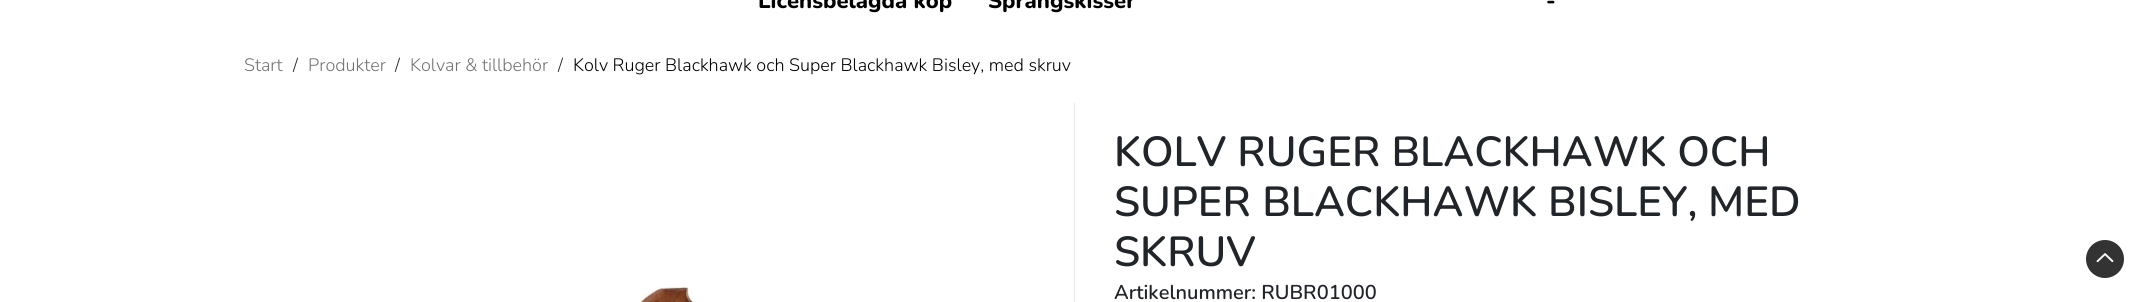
#include <cairo.h>
#include <math.h>
#include <stddef.h>


static void rgb(cairo_t *cr, int r, int g, int b)
{
	cairo_set_source_rgb(cr, r / 255.0, g / 255.0, b / 255.0);
}

static void face(cairo_t *cr, const char *family, double size, int italic, int bold)
{
	cairo_select_font_face(cr, family, italic ? CAIRO_FONT_SLANT_ITALIC : CAIRO_FONT_SLANT_NORMAL,
		bold ? CAIRO_FONT_WEIGHT_BOLD : CAIRO_FONT_WEIGHT_NORMAL);
	cairo_set_font_size(cr, size);
}

static void label(cairo_t *cr, double x, double y, const char *s)
{
	cairo_move_to(cr, x, y);
	cairo_show_text(cr, s);
}

static void rect(cairo_t *cr, double x, double y, double w, double h)
{
	cairo_rectangle(cr, x, y, w, h);
	cairo_fill(cr);
}

static void image(cairo_t *cr, const char *path, double x, double y, double w, double h)
{
	cairo_surface_t *image = cairo_image_surface_create_from_png(path);
	cairo_save(cr);
	cairo_set_source_surface(cr, image, x, y);
	cairo_rectangle(cr, x, y, w, h);
	cairo_fill(cr);
	cairo_restore(cr);
	cairo_surface_destroy(image);
}

static void draw(cairo_t *cr) {
	rgb(cr, 255, 255, 255);
	cairo_paint(cr);
	face(cr, "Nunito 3 ExtraLight", 22, 0, 0);
	rgb(cr, 0, 0, 0);
	label(cr, 758, 8, "Licensbelagda köp");
	label(cr, 988, 8, "Sprängskisser");
	label(cr, 1546, 8, "-");
	rgb(cr, 51, 51, 51);
	cairo_new_path(cr);
	cairo_arc(cr, 2105, 259, 19, 0, 2 * M_PI);
	cairo_fill(cr);
	image(cr, "image0.png", 2096, 253, 18, 10);
	face(cr, "Nunito ExtraLight", 18, 0, 0);
	rgb(cr, 115, 115, 115);
	label(cr, 244, 71, "Start");
	rgb(cr, 33, 37, 41);
	label(cr, 293, 71, "/");
	rgb(cr, 115, 115, 115);
	label(cr, 308, 71, "Produkter");
	rgb(cr, 33, 37, 41);
	label(cr, 395, 71, "/");
	rgb(cr, 115, 115, 115);
	label(cr, 410, 71, "Kolvar & tillbehör");
	rgb(cr, 33, 37, 41);
	label(cr, 558, 71, "/");
	rgb(cr, 0, 0, 0);
	label(cr, 573, 71, "Kolv Ruger Blackhawk och Super Blackhawk Bisley, med skruv");
	image(cr, "image1.png", 639, 287, 56, 15);
	rgb(cr, 229, 232, 234);
	rect(cr, 1074, 103, 1, 199);
	face(cr, "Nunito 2 ExtraLight", 42, 0, 0);
	rgb(cr, 33, 37, 41);
	label(cr, 1114, 166, "KOLV RUGER BLACKHAWK OCH");
	label(cr, 1114, 216, "SUPER BLACKHAWK BISLEY,");
	label(cr, 1708, 216, "MED");
	label(cr, 1114, 266, "SKRUV");
	face(cr, "Nunito 2 ExtraLight", 20, 0, 0);
	label(cr, 1114, 299, "Artikelnummer: RUBR01000");
}

int main(void) {
	cairo_surface_t *surface = cairo_image_surface_create(CAIRO_FORMAT_RGB24, 2148, 302);
	cairo_t *cr = cairo_create(surface);
	cairo_font_options_t *options = cairo_font_options_create();
	cairo_font_options_set_hint_metrics(options, CAIRO_HINT_METRICS_OFF);
	cairo_font_options_set_hint_style(options, CAIRO_HINT_STYLE_NONE);
	cairo_set_font_options(cr, options);
	cairo_set_miter_limit(cr, 4);
	draw(cr);
	cairo_surface_write_to_png(surface, "render.png");
	cairo_font_options_destroy(options);
	cairo_destroy(cr);
	cairo_surface_destroy(surface);
	return 0;
}
